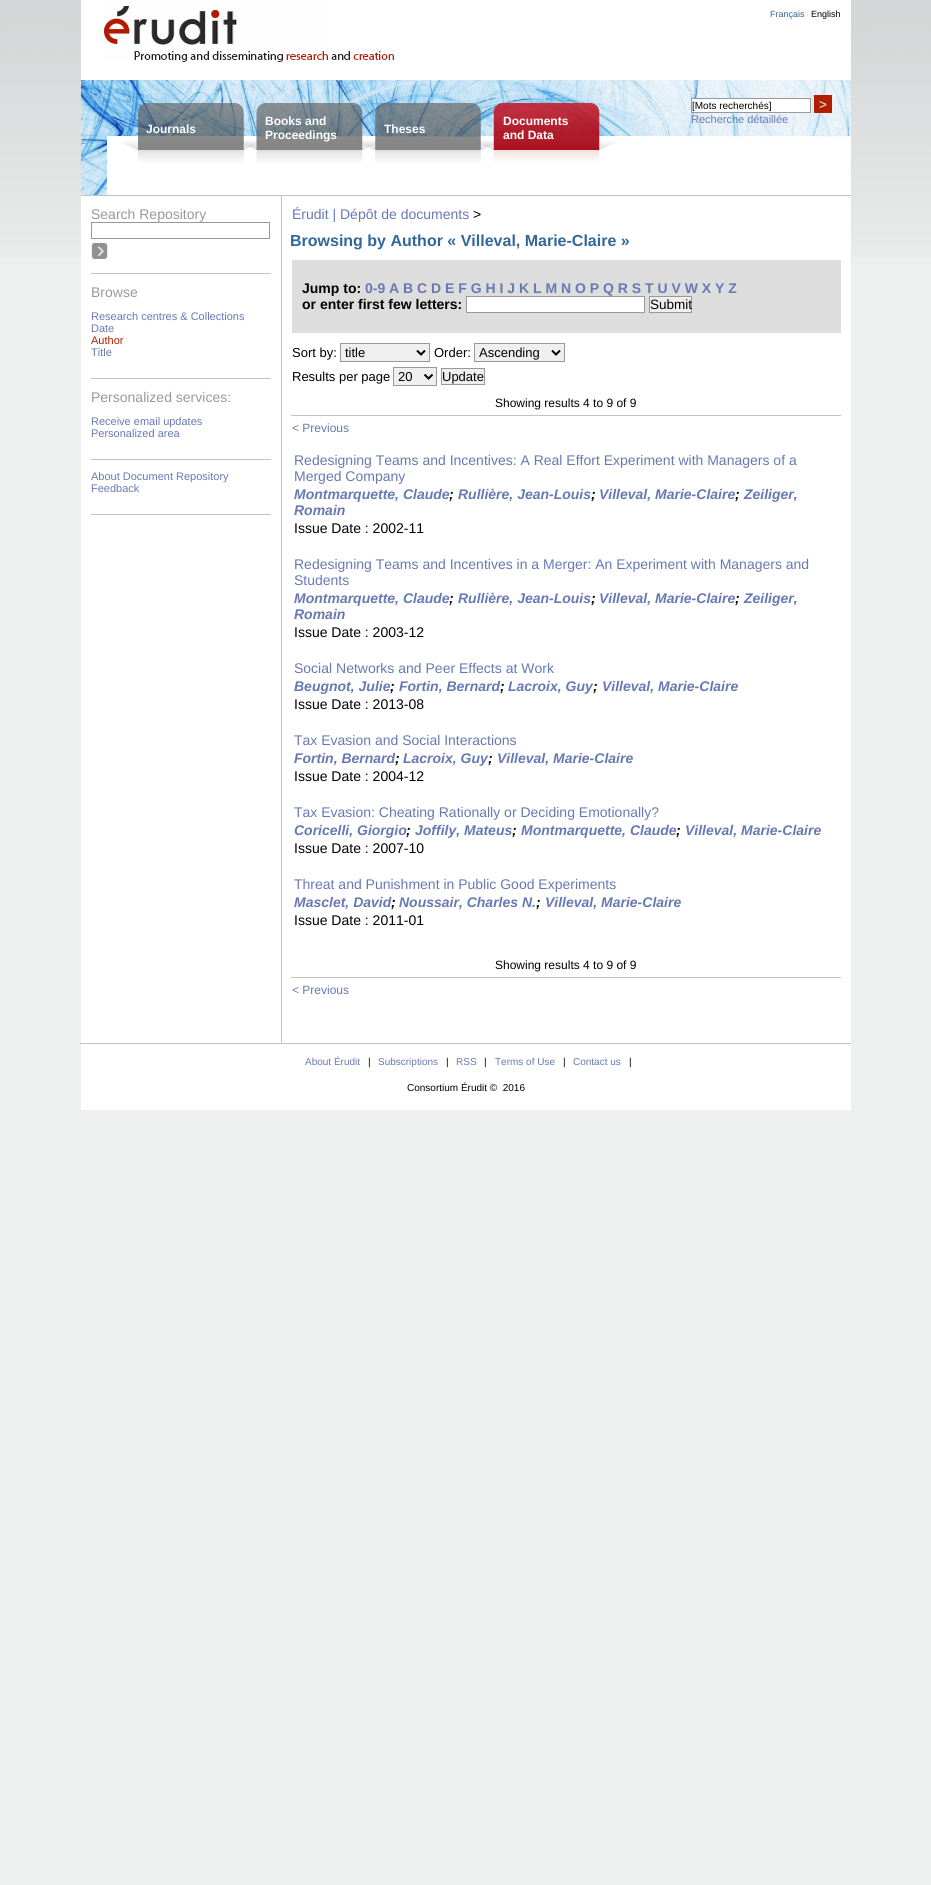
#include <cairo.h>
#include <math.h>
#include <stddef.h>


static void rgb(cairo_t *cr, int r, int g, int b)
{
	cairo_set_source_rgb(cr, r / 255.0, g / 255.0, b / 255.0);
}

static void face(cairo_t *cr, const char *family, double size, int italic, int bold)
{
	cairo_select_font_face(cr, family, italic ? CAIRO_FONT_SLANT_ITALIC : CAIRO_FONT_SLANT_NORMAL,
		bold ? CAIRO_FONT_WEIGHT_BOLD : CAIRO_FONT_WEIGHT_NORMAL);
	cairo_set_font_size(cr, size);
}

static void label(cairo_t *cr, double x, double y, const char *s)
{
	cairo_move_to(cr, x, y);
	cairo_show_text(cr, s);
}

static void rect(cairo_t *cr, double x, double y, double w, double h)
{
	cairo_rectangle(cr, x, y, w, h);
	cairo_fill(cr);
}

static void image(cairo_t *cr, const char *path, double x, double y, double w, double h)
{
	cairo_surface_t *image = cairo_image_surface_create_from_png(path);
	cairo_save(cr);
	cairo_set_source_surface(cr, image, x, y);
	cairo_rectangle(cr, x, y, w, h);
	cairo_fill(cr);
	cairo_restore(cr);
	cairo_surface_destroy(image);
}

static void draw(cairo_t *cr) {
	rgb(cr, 238, 239, 239);
	cairo_paint(cr);
	image(cr, "image0.png", 0, 0, 931, 257);
	rgb(cr, 255, 255, 255);
	rect(cr, 81, 0, 770, 80);
	image(cr, "image1.png", 104, 6, 290, 56);
	face(cr, "Liberation Sans", 9, 0, 0);
	rgb(cr, 51, 102, 153);
	label(cr, 770, 17, "Français");
	rgb(cr, 0, 0, 0);
	label(cr, 811, 17, "English");
	image(cr, "image2.png", 81, 80, 770, 115);
	rgb(cr, 195, 195, 195);
	rect(cr, 81, 195, 770, 1);
	rgb(cr, 255, 255, 255);
	cairo_rectangle(cr, 691.5, 98.5, 119, 14);
	cairo_fill_preserve(cr);
	rgb(cr, 153, 153, 153);
	cairo_set_line_width(cr, 1);
	cairo_stroke(cr);
	face(cr, "Liberation Sans", 10, 0, 0);
	rgb(cr, 0, 0, 0);
	label(cr, 692, 109, "[Mots recherchés]");
	rgb(cr, 176, 32, 0);
	rect(cr, 814, 95, 18, 18);
	face(cr, "Liberation Sans", 13.5, 0, 0);
	rgb(cr, 255, 255, 255);
	label(cr, 819, 109, ">");
	face(cr, "Liberation Sans", 11, 0, 0);
	rgb(cr, 103, 121, 180);
	label(cr, 691, 123, "Recherche détaillée");
	face(cr, "Liberation Sans", 12, 0, 1);
	rgb(cr, 255, 255, 255);
	label(cr, 146, 133, "Journals");
	label(cr, 265, 125, "Books and");
	label(cr, 265, 139, "Proceedings");
	label(cr, 384, 133, "Theses");
	label(cr, 503, 125, "Documents");
	label(cr, 503, 139, "and Data");
	rect(cr, 81, 196, 770, 914);
	face(cr, "Liberation Sans", 14, 0, 0);
	rgb(cr, 153, 153, 153);
	label(cr, 91, 219, "Search Repository");
	cairo_rectangle(cr, 91.5, 222.5, 178, 16);
	cairo_stroke(cr);
	image(cr, "image3.png", 91, 243, 17, 16);
	rgb(cr, 195, 195, 195);
	rect(cr, 91, 273, 180, 1);
	rect(cr, 91, 378, 180, 1);
	rgb(cr, 153, 153, 153);
	label(cr, 91, 297, "Browse");
	face(cr, "Liberation Sans", 11, 0, 0);
	rgb(cr, 103, 121, 180);
	label(cr, 91, 320, "Research centres & Collections");
	label(cr, 91, 332, "Date");
	rgb(cr, 176, 32, 0);
	label(cr, 91, 344, "Author");
	rgb(cr, 103, 121, 180);
	label(cr, 91, 356, "Title");
	rgb(cr, 195, 195, 195);
	rect(cr, 91, 459, 180, 1);
	face(cr, "Liberation Sans", 14, 0, 0);
	rgb(cr, 153, 153, 153);
	label(cr, 91, 402, "Personalized services:");
	face(cr, "Liberation Sans", 11, 0, 0);
	rgb(cr, 103, 121, 180);
	label(cr, 91, 425, "Receive email updates");
	label(cr, 91, 437, "Personalized area");
	rgb(cr, 195, 195, 195);
	rect(cr, 91, 514, 180, 1);
	rgb(cr, 103, 121, 180);
	label(cr, 91, 480, "About Document Repository");
	label(cr, 91, 492, "Feedback");
	rgb(cr, 195, 195, 195);
	rect(cr, 80, 1043, 771, 1);
	rect(cr, 281, 196, 1, 848);
	face(cr, "Liberation Sans", 14, 0, 0);
	rgb(cr, 103, 121, 180);
	label(cr, 292, 219, "Érudit | Dépôt de documents");
	rgb(cr, 0, 0, 0);
	label(cr, 473, 219, ">");
	face(cr, "Liberation Sans", 16, 0, 1);
	rgb(cr, 51, 102, 153);
	label(cr, 290, 246, "Browsing by Author « Villeval, Marie-Claire »");
	rgb(cr, 221, 221, 221);
	rect(cr, 292, 260, 549, 73);
	face(cr, "Liberation Sans", 14, 0, 1);
	rgb(cr, 0, 0, 0);
	label(cr, 302, 293, "Jump to:");
	rgb(cr, 103, 121, 180);
	label(cr, 365, 293, "0-9 A B C D E F G H I J K L M N O P Q R S T U V W X Y Z");
	rgb(cr, 0, 0, 0);
	label(cr, 302, 309, "or enter first few letters:");
	rgb(cr, 255, 255, 255);
	cairo_rectangle(cr, 466.5, 296.5, 178, 16);
	cairo_fill_preserve(cr);
	rgb(cr, 153, 153, 153);
	cairo_stroke(cr);
	rgb(cr, 239, 239, 239);
	cairo_rectangle(cr, 649.5, 296.5, 42, 16);
	cairo_fill_preserve(cr);
	rgb(cr, 153, 153, 153);
	cairo_stroke(cr);
	face(cr, "Liberation Sans", 13.5, 0, 0);
	rgb(cr, 0, 0, 0);
	label(cr, 650, 309, "Submit");
	face(cr, "Liberation Sans", 13, 0, 0);
	label(cr, 292, 357, "Sort by:");
	rgb(cr, 239, 239, 239);
	cairo_rectangle(cr, 340.5, 343.5, 89, 18);
	cairo_fill_preserve(cr);
	rgb(cr, 153, 153, 153);
	cairo_stroke(cr);
	cairo_new_path(cr);
	cairo_move_to(cr, 417, 350.5);
	cairo_line_to(cr, 421, 354.5);
	cairo_line_to(cr, 425, 350.5);
	rgb(cr, 0, 0, 0);
	cairo_set_line_width(cr, 2);
	cairo_stroke(cr);
	label(cr, 345, 357, "title");
	label(cr, 434, 357, "Order:");
	rgb(cr, 239, 239, 239);
	cairo_rectangle(cr, 474.5, 343.5, 90, 18);
	cairo_fill_preserve(cr);
	rgb(cr, 153, 153, 153);
	cairo_set_line_width(cr, 1);
	cairo_stroke(cr);
	cairo_new_path(cr);
	cairo_move_to(cr, 552, 350.5);
	cairo_line_to(cr, 556, 354.5);
	cairo_line_to(cr, 560, 350.5);
	rgb(cr, 0, 0, 0);
	cairo_set_line_width(cr, 2);
	cairo_stroke(cr);
	label(cr, 479, 357, "Ascending");
	label(cr, 292, 381, "Results per page");
	rgb(cr, 239, 239, 239);
	cairo_rectangle(cr, 393.5, 367.5, 43, 18);
	cairo_fill_preserve(cr);
	rgb(cr, 153, 153, 153);
	cairo_set_line_width(cr, 1);
	cairo_stroke(cr);
	cairo_new_path(cr);
	cairo_move_to(cr, 424.5, 374.5);
	cairo_line_to(cr, 428.5, 378.5);
	cairo_line_to(cr, 432.5, 374.5);
	rgb(cr, 0, 0, 0);
	cairo_set_line_width(cr, 2);
	cairo_stroke(cr);
	label(cr, 398, 381, "20");
	rgb(cr, 239, 239, 239);
	cairo_rectangle(cr, 441.5, 368.5, 43, 16);
	cairo_fill_preserve(cr);
	rgb(cr, 153, 153, 153);
	cairo_set_line_width(cr, 1);
	cairo_stroke(cr);
	rgb(cr, 0, 0, 0);
	label(cr, 442, 381, "Update");
	face(cr, "Liberation Sans", 12, 0, 0);
	label(cr, 495, 407, "Showing results 4 to 9 of 9");
	rgb(cr, 195, 195, 195);
	rect(cr, 291, 415, 550, 1);
	rgb(cr, 103, 121, 180);
	label(cr, 292, 432, "< Previous");
	face(cr, "Liberation Sans", 14, 0, 0);
	label(cr, 294, 465, "Redesigning Teams and Incentives: A Real Effort Experiment with Managers of a");
	label(cr, 294, 481, "Merged Company");
	face(cr, "Liberation Sans", 14, 1, 1);
	label(cr, 294, 499, "Montmarquette, Claude");
	rgb(cr, 0, 0, 0);
	label(cr, 449, 499, ";");
	rgb(cr, 103, 121, 180);
	label(cr, 458, 499, "Rullière, Jean-Louis");
	rgb(cr, 0, 0, 0);
	label(cr, 591, 499, ";");
	rgb(cr, 103, 121, 180);
	label(cr, 599, 499, "Villeval, Marie-Claire");
	rgb(cr, 0, 0, 0);
	label(cr, 735, 499, ";");
	rgb(cr, 103, 121, 180);
	label(cr, 744, 499, "Zeiliger,");
	label(cr, 294, 515, "Romain");
	face(cr, "Liberation Sans", 14, 0, 0);
	rgb(cr, 0, 0, 0);
	label(cr, 294, 533, "Issue Date : 2002-11");
	rgb(cr, 103, 121, 180);
	label(cr, 294, 569, "Redesigning Teams and Incentives in a Merger: An Experiment with Managers and");
	label(cr, 294, 585, "Students");
	face(cr, "Liberation Sans", 14, 1, 1);
	label(cr, 294, 603, "Montmarquette, Claude");
	rgb(cr, 0, 0, 0);
	label(cr, 449, 603, ";");
	rgb(cr, 103, 121, 180);
	label(cr, 458, 603, "Rullière, Jean-Louis");
	rgb(cr, 0, 0, 0);
	label(cr, 591, 603, ";");
	rgb(cr, 103, 121, 180);
	label(cr, 599, 603, "Villeval, Marie-Claire");
	rgb(cr, 0, 0, 0);
	label(cr, 735, 603, ";");
	rgb(cr, 103, 121, 180);
	label(cr, 744, 603, "Zeiliger,");
	label(cr, 294, 619, "Romain");
	face(cr, "Liberation Sans", 14, 0, 0);
	rgb(cr, 0, 0, 0);
	label(cr, 294, 637, "Issue Date : 2003-12");
	rgb(cr, 103, 121, 180);
	label(cr, 294, 673, "Social Networks and Peer Effects at Work");
	face(cr, "Liberation Sans", 14, 1, 1);
	label(cr, 294, 691, "Beugnot, Julie");
	rgb(cr, 0, 0, 0);
	label(cr, 390, 691, ";");
	rgb(cr, 103, 121, 180);
	label(cr, 399, 691, "Fortin, Bernard");
	rgb(cr, 0, 0, 0);
	label(cr, 500, 691, ";");
	rgb(cr, 103, 121, 180);
	label(cr, 508, 691, "Lacroix, Guy");
	rgb(cr, 0, 0, 0);
	label(cr, 593, 691, ";");
	rgb(cr, 103, 121, 180);
	label(cr, 602, 691, "Villeval, Marie-Claire");
	face(cr, "Liberation Sans", 14, 0, 0);
	rgb(cr, 0, 0, 0);
	label(cr, 294, 709, "Issue Date : 2013-08");
	rgb(cr, 103, 121, 180);
	label(cr, 294, 745, "Tax Evasion and Social Interactions");
	face(cr, "Liberation Sans", 14, 1, 1);
	label(cr, 294, 763, "Fortin, Bernard");
	rgb(cr, 0, 0, 0);
	label(cr, 395, 763, ";");
	rgb(cr, 103, 121, 180);
	label(cr, 403, 763, "Lacroix, Guy");
	rgb(cr, 0, 0, 0);
	label(cr, 488, 763, ";");
	rgb(cr, 103, 121, 180);
	label(cr, 497, 763, "Villeval, Marie-Claire");
	face(cr, "Liberation Sans", 14, 0, 0);
	rgb(cr, 0, 0, 0);
	label(cr, 294, 781, "Issue Date : 2004-12");
	rgb(cr, 103, 121, 180);
	label(cr, 294, 817, "Tax Evasion: Cheating Rationally or Deciding Emotionally?");
	face(cr, "Liberation Sans", 14, 1, 1);
	label(cr, 294, 835, "Coricelli, Giorgio");
	rgb(cr, 0, 0, 0);
	label(cr, 406, 835, ";");
	rgb(cr, 103, 121, 180);
	label(cr, 415, 835, "Joffily, Mateus");
	rgb(cr, 0, 0, 0);
	label(cr, 512, 835, ";");
	rgb(cr, 103, 121, 180);
	label(cr, 521, 835, "Montmarquette, Claude");
	rgb(cr, 0, 0, 0);
	label(cr, 676, 835, ";");
	rgb(cr, 103, 121, 180);
	label(cr, 685, 835, "Villeval, Marie-Claire");
	face(cr, "Liberation Sans", 14, 0, 0);
	rgb(cr, 0, 0, 0);
	label(cr, 294, 853, "Issue Date : 2007-10");
	rgb(cr, 103, 121, 180);
	label(cr, 294, 889, "Threat and Punishment in Public Good Experiments");
	face(cr, "Liberation Sans", 14, 1, 1);
	label(cr, 294, 907, "Masclet, David");
	rgb(cr, 0, 0, 0);
	label(cr, 391, 907, ";");
	rgb(cr, 103, 121, 180);
	label(cr, 399, 907, "Noussair, Charles N.");
	rgb(cr, 0, 0, 0);
	label(cr, 536, 907, ";");
	rgb(cr, 103, 121, 180);
	label(cr, 545, 907, "Villeval, Marie-Claire");
	face(cr, "Liberation Sans", 14, 0, 0);
	rgb(cr, 0, 0, 0);
	label(cr, 294, 925, "Issue Date : 2011-01");
	face(cr, "Liberation Sans", 12, 0, 0);
	label(cr, 495, 969, "Showing results 4 to 9 of 9");
	rgb(cr, 195, 195, 195);
	rect(cr, 291, 977, 550, 1);
	rgb(cr, 103, 121, 180);
	label(cr, 292, 994, "< Previous");
	face(cr, "Liberation Sans", 10, 0, 0);
	label(cr, 305, 1065, "About Érudit");
	rgb(cr, 0, 0, 0);
	label(cr, 368, 1065, "|");
	rgb(cr, 103, 121, 180);
	label(cr, 378, 1065, "Subscriptions");
	rgb(cr, 0, 0, 0);
	label(cr, 446, 1065, "|");
	rgb(cr, 103, 121, 180);
	label(cr, 456, 1065, "RSS");
	rgb(cr, 0, 0, 0);
	label(cr, 484, 1065, "|");
	rgb(cr, 103, 121, 180);
	label(cr, 495, 1065, "Terms of Use");
	rgb(cr, 0, 0, 0);
	label(cr, 563, 1065, "|");
	rgb(cr, 103, 121, 180);
	label(cr, 573, 1065, "Contact us");
	rgb(cr, 0, 0, 0);
	label(cr, 629, 1065, "|");
	label(cr, 407, 1091, "Consortium Érudit ©  2016");
}

int main(void) {
	cairo_surface_t *surface = cairo_image_surface_create(CAIRO_FORMAT_RGB24, 931, 1885);
	cairo_t *cr = cairo_create(surface);
	cairo_font_options_t *options = cairo_font_options_create();
	cairo_font_options_set_hint_metrics(options, CAIRO_HINT_METRICS_OFF);
	cairo_font_options_set_hint_style(options, CAIRO_HINT_STYLE_NONE);
	cairo_set_font_options(cr, options);
	cairo_set_miter_limit(cr, 4);
	draw(cr);
	cairo_surface_write_to_png(surface, "render.png");
	cairo_font_options_destroy(options);
	cairo_destroy(cr);
	cairo_surface_destroy(surface);
	return 0;
}
